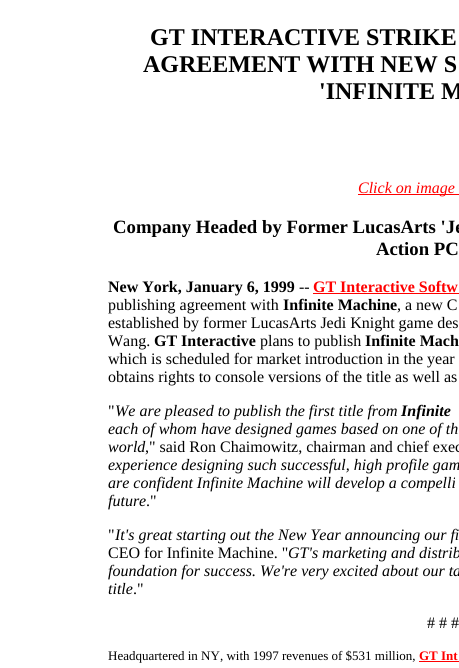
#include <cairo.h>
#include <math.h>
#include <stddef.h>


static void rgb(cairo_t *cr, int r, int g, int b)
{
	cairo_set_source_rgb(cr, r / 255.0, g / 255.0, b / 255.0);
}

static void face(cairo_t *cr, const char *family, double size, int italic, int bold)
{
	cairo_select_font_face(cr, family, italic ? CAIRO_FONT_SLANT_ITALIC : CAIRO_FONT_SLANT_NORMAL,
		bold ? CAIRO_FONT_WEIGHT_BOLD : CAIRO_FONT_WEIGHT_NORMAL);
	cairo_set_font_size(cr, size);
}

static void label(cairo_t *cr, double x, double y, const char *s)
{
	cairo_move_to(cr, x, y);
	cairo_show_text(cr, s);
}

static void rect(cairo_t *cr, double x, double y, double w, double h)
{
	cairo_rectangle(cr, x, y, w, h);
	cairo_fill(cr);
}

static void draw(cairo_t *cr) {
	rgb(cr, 255, 255, 255);
	cairo_paint(cr);
	face(cr, "Liberation Serif", 24, 0, 1);
	rgb(cr, 0, 0, 0);
	label(cr, 150, 45, "GT INTERACTIVE STRIKE");
	label(cr, 143, 72, "AGREEMENT WITH NEW S");
	label(cr, 319, 99, "'INFINITE M");
	rgb(cr, 255, 0, 0);
	rect(cr, 358, 194, 101, 1);
	face(cr, "Liberation Serif", 16, 1, 0);
	label(cr, 358, 193, "Click on image");
	face(cr, "Liberation Serif", 18.75, 0, 1);
	rgb(cr, 0, 0, 0);
	label(cr, 113, 233, "Company Headed by Former LucasArts 'Je");
	label(cr, 376, 255, "Action PC");
	face(cr, "Liberation Serif", 16, 0, 1);
	label(cr, 108, 292, "New York, January 6, 1999");
	face(cr, "Liberation Serif", 16, 0, 0);
	label(cr, 299, 292, "--");
	face(cr, "Liberation Serif", 16, 0, 1);
	rgb(cr, 255, 0, 0);
	label(cr, 313, 292, "GT Interactive Softw");
	rect(cr, 313, 293, 146, 1);
	face(cr, "Liberation Serif", 16, 0, 0);
	rgb(cr, 0, 0, 0);
	label(cr, 108, 310, "publishing agreement with");
	face(cr, "Liberation Serif", 16, 0, 1);
	label(cr, 283, 310, "Infinite Machine");
	face(cr, "Liberation Serif", 16, 0, 0);
	label(cr, 397, 310, ", a new C");
	label(cr, 108, 328, "established by former LucasArts Jedi Knight game des");
	label(cr, 108, 346, "Wang.");
	face(cr, "Liberation Serif", 16, 0, 1);
	label(cr, 154, 346, "GT Interactive");
	face(cr, "Liberation Serif", 16, 0, 0);
	label(cr, 260, 346, "plans to publish");
	face(cr, "Liberation Serif", 16, 0, 1);
	label(cr, 365, 346, "Infinite Mach");
	face(cr, "Liberation Serif", 16, 0, 0);
	label(cr, 108, 364, "which is scheduled for market introduction in the year");
	label(cr, 108, 382, "obtains rights to console versions of the title as well as");
	label(cr, 108, 416, "\"");
	face(cr, "Liberation Serif", 16, 1, 0);
	label(cr, 115, 416, "We are pleased to publish the first title from");
	face(cr, "Liberation Serif", 16, 1, 1);
	label(cr, 401, 416, "Infinite");
	face(cr, "Liberation Serif", 16, 1, 0);
	label(cr, 108, 434, "each of whom have designed games based on one of th");
	label(cr, 108, 452, "world");
	face(cr, "Liberation Serif", 16, 0, 0);
	label(cr, 145, 452, ",\" said Ron Chaimowitz, chairman and chief exec");
	face(cr, "Liberation Serif", 16, 1, 0);
	label(cr, 108, 470, "experience designing such successful, high profile gam");
	label(cr, 108, 488, "are confident Infinite Machine will develop a compelli");
	label(cr, 108, 506, "future");
	face(cr, "Liberation Serif", 16, 0, 0);
	label(cr, 146, 506, ".\"");
	label(cr, 108, 540, "\"");
	face(cr, "Liberation Serif", 16, 1, 0);
	label(cr, 115, 540, "It's great starting out the New Year announcing our fi");
	face(cr, "Liberation Serif", 16, 0, 0);
	label(cr, 108, 558, "CEO for Infinite Machine. \"");
	face(cr, "Liberation Serif", 16, 1, 0);
	label(cr, 288, 558, "GT's marketing and distrib");
	label(cr, 108, 576, "foundation for success. We're very excited about our ta");
	label(cr, 108, 594, "title");
	face(cr, "Liberation Serif", 16, 0, 0);
	label(cr, 133, 594, ".\"");
	label(cr, 427, 628, "# # #");
	face(cr, "Liberation Serif", 13, 0, 0);
	label(cr, 108, 660, "Headquartered in NY, with 1997 revenues of $531 million,");
	face(cr, "Liberation Serif", 13, 0, 1);
	rgb(cr, 255, 0, 0);
	label(cr, 419, 660, "GT Int");
	rect(cr, 419, 661, 40, 1);
}

int main(void) {
	cairo_surface_t *surface = cairo_image_surface_create(CAIRO_FORMAT_RGB24, 459, 668);
	cairo_t *cr = cairo_create(surface);
	cairo_font_options_t *options = cairo_font_options_create();
	cairo_font_options_set_hint_metrics(options, CAIRO_HINT_METRICS_OFF);
	cairo_font_options_set_hint_style(options, CAIRO_HINT_STYLE_NONE);
	cairo_set_font_options(cr, options);
	cairo_set_miter_limit(cr, 4);
	draw(cr);
	cairo_surface_write_to_png(surface, "render.png");
	cairo_font_options_destroy(options);
	cairo_destroy(cr);
	cairo_surface_destroy(surface);
	return 0;
}
